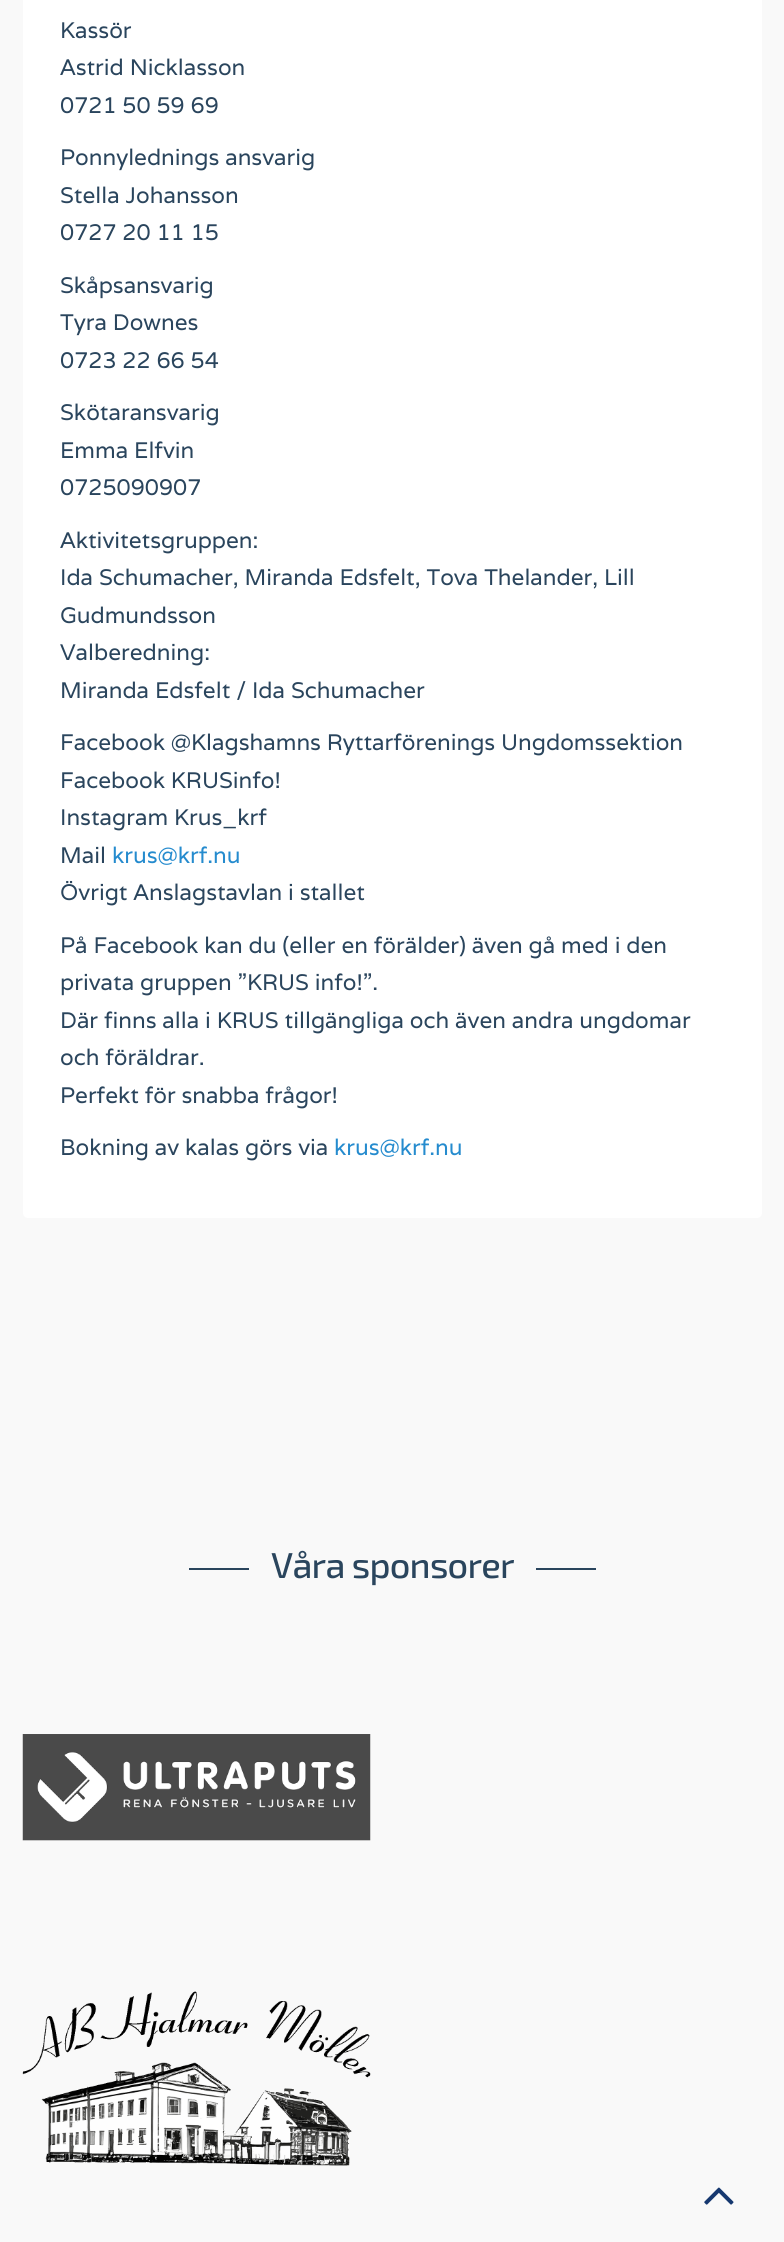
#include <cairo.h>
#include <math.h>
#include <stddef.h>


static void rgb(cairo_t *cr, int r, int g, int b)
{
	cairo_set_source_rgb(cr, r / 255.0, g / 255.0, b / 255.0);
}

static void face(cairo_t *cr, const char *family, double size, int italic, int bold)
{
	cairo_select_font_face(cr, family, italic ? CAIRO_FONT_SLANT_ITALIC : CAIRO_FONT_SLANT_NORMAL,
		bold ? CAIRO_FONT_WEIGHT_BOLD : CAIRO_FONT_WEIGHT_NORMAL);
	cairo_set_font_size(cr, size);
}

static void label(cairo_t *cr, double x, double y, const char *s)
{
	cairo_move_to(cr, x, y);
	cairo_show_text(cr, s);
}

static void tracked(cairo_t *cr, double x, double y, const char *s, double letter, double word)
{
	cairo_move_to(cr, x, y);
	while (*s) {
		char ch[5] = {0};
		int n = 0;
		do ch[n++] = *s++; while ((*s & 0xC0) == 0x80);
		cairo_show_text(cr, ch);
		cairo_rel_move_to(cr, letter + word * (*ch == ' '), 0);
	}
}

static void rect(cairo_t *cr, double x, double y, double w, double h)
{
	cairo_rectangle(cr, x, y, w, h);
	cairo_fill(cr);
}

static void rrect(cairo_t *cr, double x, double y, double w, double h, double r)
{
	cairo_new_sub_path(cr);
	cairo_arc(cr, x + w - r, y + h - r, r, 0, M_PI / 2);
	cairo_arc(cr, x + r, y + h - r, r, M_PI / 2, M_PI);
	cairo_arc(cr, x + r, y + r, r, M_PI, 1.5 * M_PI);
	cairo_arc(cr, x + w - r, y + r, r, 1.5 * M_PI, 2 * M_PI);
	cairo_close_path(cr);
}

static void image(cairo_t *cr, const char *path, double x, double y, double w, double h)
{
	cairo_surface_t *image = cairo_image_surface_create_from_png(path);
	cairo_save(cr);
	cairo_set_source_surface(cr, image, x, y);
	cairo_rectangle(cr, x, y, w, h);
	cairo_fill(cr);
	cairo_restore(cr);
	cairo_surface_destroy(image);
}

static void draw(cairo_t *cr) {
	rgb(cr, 249, 249, 249);
	cairo_paint(cr);
	rgb(cr, 255, 255, 255);
	rrect(cr, 23, -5, 739, 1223, 5);
	cairo_fill(cr);
	face(cr, "Varela", 22.5, 0, 0);
	rgb(cr, 42, 69, 93);
	label(cr, 60, 38, "Kassör");
	label(cr, 60, 75, "Astrid Nicklasson");
	label(cr, 60, 113, "0721 50 59 69");
	label(cr, 60, 165, "Ponnylednings ansvarig");
	label(cr, 60, 203, "Stella Johansson");
	label(cr, 60, 240, "0727 20 11 15");
	label(cr, 60, 293, "Skåpsansvarig");
	label(cr, 60, 330, "Tyra Downes");
	label(cr, 60, 368, "0723 22 66 54");
	label(cr, 60, 420, "Skötaransvarig");
	label(cr, 60, 458, "Emma Elfvin");
	label(cr, 60, 495, "0725090907");
	label(cr, 60, 548, "Aktivitetsgruppen:");
	label(cr, 60, 585, "Ida Schumacher, Miranda Edsfelt, Tova Thelander, Lill");
	label(cr, 60, 623, "Gudmundsson");
	label(cr, 60, 660, "Valberedning:");
	label(cr, 60, 698, "Miranda Edsfelt / Ida Schumacher");
	label(cr, 60, 750, "Facebook @Klagshamns Ryttarförenings Ungdomssektion");
	label(cr, 60, 788, "Facebook KRUSinfo!");
	label(cr, 60, 825, "Instagram Krus_krf");
	label(cr, 60, 863, "Mail");
	rgb(cr, 37, 139, 206);
	label(cr, 112, 863, "krus@krf.nu");
	rgb(cr, 42, 69, 93);
	label(cr, 60, 900, "Övrigt Anslagstavlan i stallet");
	label(cr, 60, 953, "På Facebook kan du (eller en förälder) även gå med i den");
	label(cr, 60, 990, "privata gruppen ”KRUS info!”.");
	label(cr, 60, 1028, "Där finns alla i KRUS tillgängliga och även andra ungdomar");
	label(cr, 60, 1065, "och föräldrar.");
	label(cr, 60, 1103, "Perfekt för snabba frågor!");
	label(cr, 60, 1155, "Bokning av kalas görs via");
	rgb(cr, 37, 139, 206);
	label(cr, 334, 1155, "krus@krf.nu");
	rgb(cr, 42, 69, 93);
	rect(cr, 189, 1568, 60, 2);
	face(cr, "Exo 2 Medium", 36, 0, 0);
	tracked(cr, 271, 1578, "Våra sponsorer", -0.75, 0);
	rect(cr, 536, 1568, 60, 2);
	image(cr, "image0.png", 22, 1734, 349, 107);
	image(cr, "image1.png", 22, 1991, 349, 175);
	image(cr, "image2.png", 704, 2187, 30, 18);
}

int main(void) {
	cairo_surface_t *surface = cairo_image_surface_create(CAIRO_FORMAT_RGB24, 784, 2242);
	cairo_t *cr = cairo_create(surface);
	cairo_font_options_t *options = cairo_font_options_create();
	cairo_font_options_set_hint_metrics(options, CAIRO_HINT_METRICS_OFF);
	cairo_font_options_set_hint_style(options, CAIRO_HINT_STYLE_NONE);
	cairo_set_font_options(cr, options);
	cairo_set_miter_limit(cr, 4);
	draw(cr);
	cairo_surface_write_to_png(surface, "render.png");
	cairo_font_options_destroy(options);
	cairo_destroy(cr);
	cairo_surface_destroy(surface);
	return 0;
}
